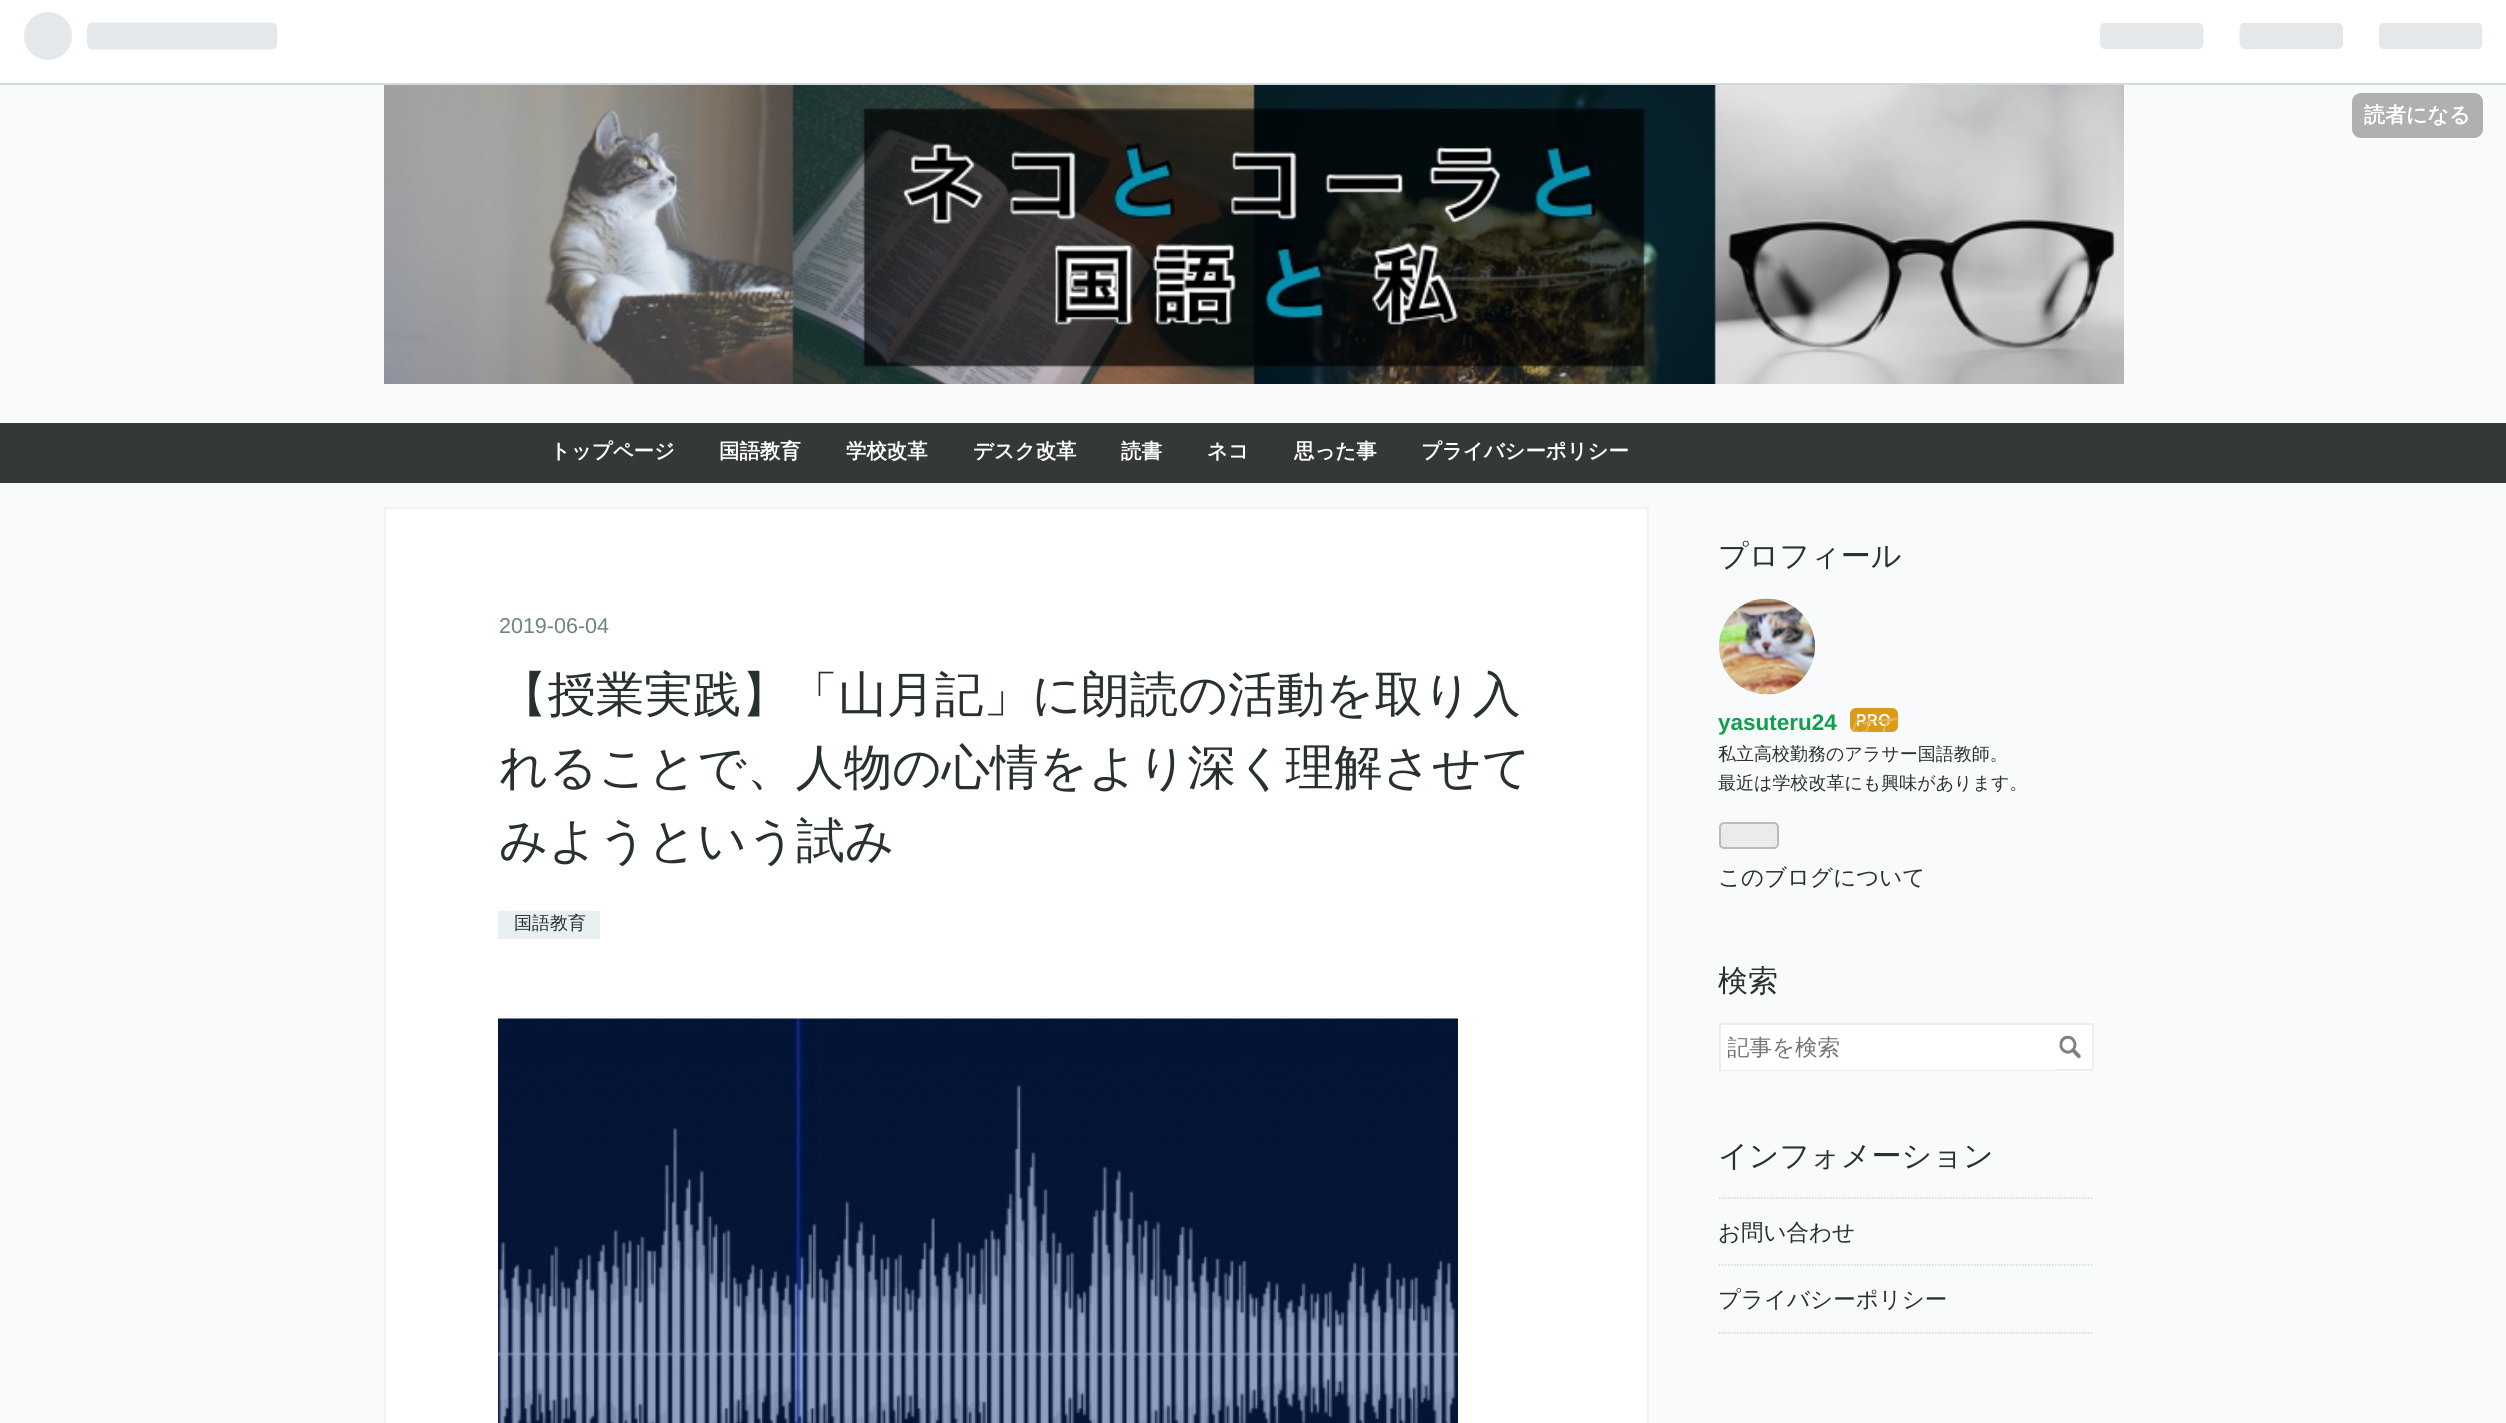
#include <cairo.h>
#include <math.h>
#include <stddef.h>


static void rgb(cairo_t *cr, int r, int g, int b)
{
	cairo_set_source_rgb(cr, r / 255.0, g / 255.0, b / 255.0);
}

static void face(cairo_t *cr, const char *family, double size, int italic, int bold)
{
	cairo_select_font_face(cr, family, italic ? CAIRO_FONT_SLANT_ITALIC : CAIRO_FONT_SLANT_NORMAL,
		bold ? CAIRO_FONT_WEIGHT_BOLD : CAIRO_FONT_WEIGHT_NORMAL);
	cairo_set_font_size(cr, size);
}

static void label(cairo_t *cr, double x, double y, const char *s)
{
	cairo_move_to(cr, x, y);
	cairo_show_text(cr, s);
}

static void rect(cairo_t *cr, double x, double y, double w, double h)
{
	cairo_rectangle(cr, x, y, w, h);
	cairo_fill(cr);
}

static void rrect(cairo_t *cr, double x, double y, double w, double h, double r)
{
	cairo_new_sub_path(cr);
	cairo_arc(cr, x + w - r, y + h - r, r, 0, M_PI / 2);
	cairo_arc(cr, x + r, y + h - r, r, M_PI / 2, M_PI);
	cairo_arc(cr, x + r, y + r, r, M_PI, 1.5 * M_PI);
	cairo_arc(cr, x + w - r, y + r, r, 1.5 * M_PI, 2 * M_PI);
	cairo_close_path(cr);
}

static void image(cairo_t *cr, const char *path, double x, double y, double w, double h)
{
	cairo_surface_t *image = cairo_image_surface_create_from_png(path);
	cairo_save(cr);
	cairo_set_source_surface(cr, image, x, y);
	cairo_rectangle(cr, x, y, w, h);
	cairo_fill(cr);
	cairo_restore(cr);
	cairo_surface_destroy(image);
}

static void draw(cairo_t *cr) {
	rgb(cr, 249, 250, 251);
	cairo_paint(cr);
	rgb(cr, 255, 255, 255);
	rect(cr, 0, 0, 2506, 83);
	rgb(cr, 210, 216, 221);
	rect(cr, 0, 83, 2506, 2);
	image(cr, "image0.png", 24, 12, 254, 48);
	image(cr, "image1.png", 2100, 23, 383, 27);
	rgb(cr, 174, 176, 178);
	rrect(cr, 2352, 93, 131, 45, 9);
	cairo_fill(cr);
	face(cr, "WenQuanYi Zen Hei", 21, 0, 1);
	rgb(cr, 255, 255, 255);
	label(cr, 2364, 122, "読者になる");
	image(cr, "image2.png", 384, 85, 1740, 299);
	rgb(cr, 52, 56, 56);
	rect(cr, 0, 423, 2506, 60);
	face(cr, "WenQuanYi Zen Hei", 20.4, 0, 1);
	rgb(cr, 255, 255, 255);
	label(cr, 550, 458, "トップページ");
	label(cr, 719, 458, "国語教育");
	label(cr, 846, 458, "学校改革");
	label(cr, 973, 458, "デスク改革");
	label(cr, 1121, 458, "読書");
	label(cr, 1207, 458, "ネコ");
	label(cr, 1294, 458, "思った事");
	label(cr, 1421, 458, "プライバシーポリシー");
	cairo_rectangle(cr, 385, 508, 1263, 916);
	cairo_fill_preserve(cr);
	rgb(cr, 240, 241, 241);
	cairo_stroke(cr);
	face(cr, "Liberation Sans", 21.5, 0, 0);
	rgb(cr, 111, 131, 131);
	label(cr, 499, 633, "2019-06-04");
	face(cr, "WenQuanYi Zen Hei Medium", 48.45, 0, 0);
	rgb(cr, 41, 48, 48);
	label(cr, 499, 711, "【授業実践】「山月記」に朗読の活動を取り入");
	label(cr, 499, 784, "れることで、人物の心情をより深く理解させて");
	label(cr, 499, 857, "みようという試み");
	rgb(cr, 233, 240, 242);
	rect(cr, 498, 911, 102, 28);
	face(cr, "WenQuanYi Zen Hei Medium", 18, 0, 0);
	rgb(cr, 41, 48, 48);
	label(cr, 514, 929, "国語教育");
	image(cr, "image3.png", 498, 1018, 960, 405);
	face(cr, "WenQuanYi Zen Hei Medium", 30, 0, 0);
	label(cr, 1718, 566, "プロフィール");
	image(cr, "image4.png", 1719, 598, 96, 97);
	face(cr, "Liberation Sans", 22.5, 0, 1);
	rgb(cr, 17, 158, 77);
	label(cr, 1718, 730, "yasuteru24");
	image(cr, "image5.png", 1850, 708, 48, 24);
	cairo_save(cr);
	cairo_rectangle(cr, 1850, 708, 48, 24);
	cairo_clip(cr);
	face(cr, "WenQuanYi Zen Hei", 22.5, 1, 1);
	rgb(cr, 228, 181, 84);
	label(cr, 1850, 734, "はて");
	cairo_restore(cr);
	face(cr, "WenQuanYi Zen Hei Medium", 18, 0, 0);
	rgb(cr, 41, 48, 48);
	label(cr, 1718, 760, "私立高校勤務のアラサー国語教師。");
	label(cr, 1718, 789, "最近は学校改革にも興味があります。");
	rgb(cr, 235, 235, 235);
	rrect(cr, 1720, 823, 58, 25, 4);
	cairo_fill_preserve(cr);
	rgb(cr, 187, 187, 187);
	cairo_stroke(cr);
	face(cr, "WenQuanYi Zen Hei Medium", 22.5, 0, 0);
	rgb(cr, 41, 48, 48);
	label(cr, 1718, 885, "このブログについて");
	face(cr, "WenQuanYi Zen Hei Medium", 30, 0, 0);
	label(cr, 1718, 991, "検索");
	rgb(cr, 255, 255, 255);
	rect(cr, 2055, 1025, 37, 44);
	cairo_rectangle(cr, 1720, 1024, 373, 46);
	rgb(cr, 238, 238, 238);
	cairo_stroke(cr);
	rgb(cr, 255, 255, 255);
	rect(cr, 1721, 1025, 334, 45);
	cairo_save(cr);
	cairo_rectangle(cr, 1728, 1034, 320, 28);
	cairo_clip(cr);
	face(cr, "WenQuanYi Zen Hei Medium", 22.5, 0, 0);
	rgb(cr, 117, 117, 117);
	label(cr, 1727, 1055, "記事を検索");
	cairo_restore(cr);
	image(cr, "image6.png", 2059, 1035, 22, 24);
	rgb(cr, 41, 48, 48);
	label(cr, 1718, 1166, "インフォメーション");
	cairo_new_path(cr);
	cairo_move_to(cr, 1719, 1198);
	cairo_line_to(cr, 2094, 1198);
	rgb(cr, 207, 216, 216);
	cairo_set_line_width(cr, 1.5);
	cairo_set_dash(cr, (double[]){1.5, 1.5}, 2, 0);
	cairo_stroke(cr);
	face(cr, "WenQuanYi Zen Hei Medium", 22.5, 0, 0);
	rgb(cr, 41, 48, 48);
	label(cr, 1718, 1240, "お問い合わせ");
	cairo_new_path(cr);
	cairo_move_to(cr, 1719, 1265);
	cairo_line_to(cr, 2094, 1265);
	rgb(cr, 207, 216, 216);
	cairo_stroke(cr);
	cairo_new_path(cr);
	cairo_move_to(cr, 1719, 1333);
	cairo_line_to(cr, 2094, 1333);
	cairo_stroke(cr);
	rgb(cr, 41, 48, 48);
	label(cr, 1718, 1307, "プライバシーポリシー");
}

int main(void) {
	cairo_surface_t *surface = cairo_image_surface_create(CAIRO_FORMAT_RGB24, 2506, 1423);
	cairo_t *cr = cairo_create(surface);
	cairo_font_options_t *options = cairo_font_options_create();
	cairo_font_options_set_hint_metrics(options, CAIRO_HINT_METRICS_OFF);
	cairo_font_options_set_hint_style(options, CAIRO_HINT_STYLE_NONE);
	cairo_set_font_options(cr, options);
	cairo_set_miter_limit(cr, 4);
	draw(cr);
	cairo_surface_write_to_png(surface, "render.png");
	cairo_font_options_destroy(options);
	cairo_destroy(cr);
	cairo_surface_destroy(surface);
	return 0;
}
